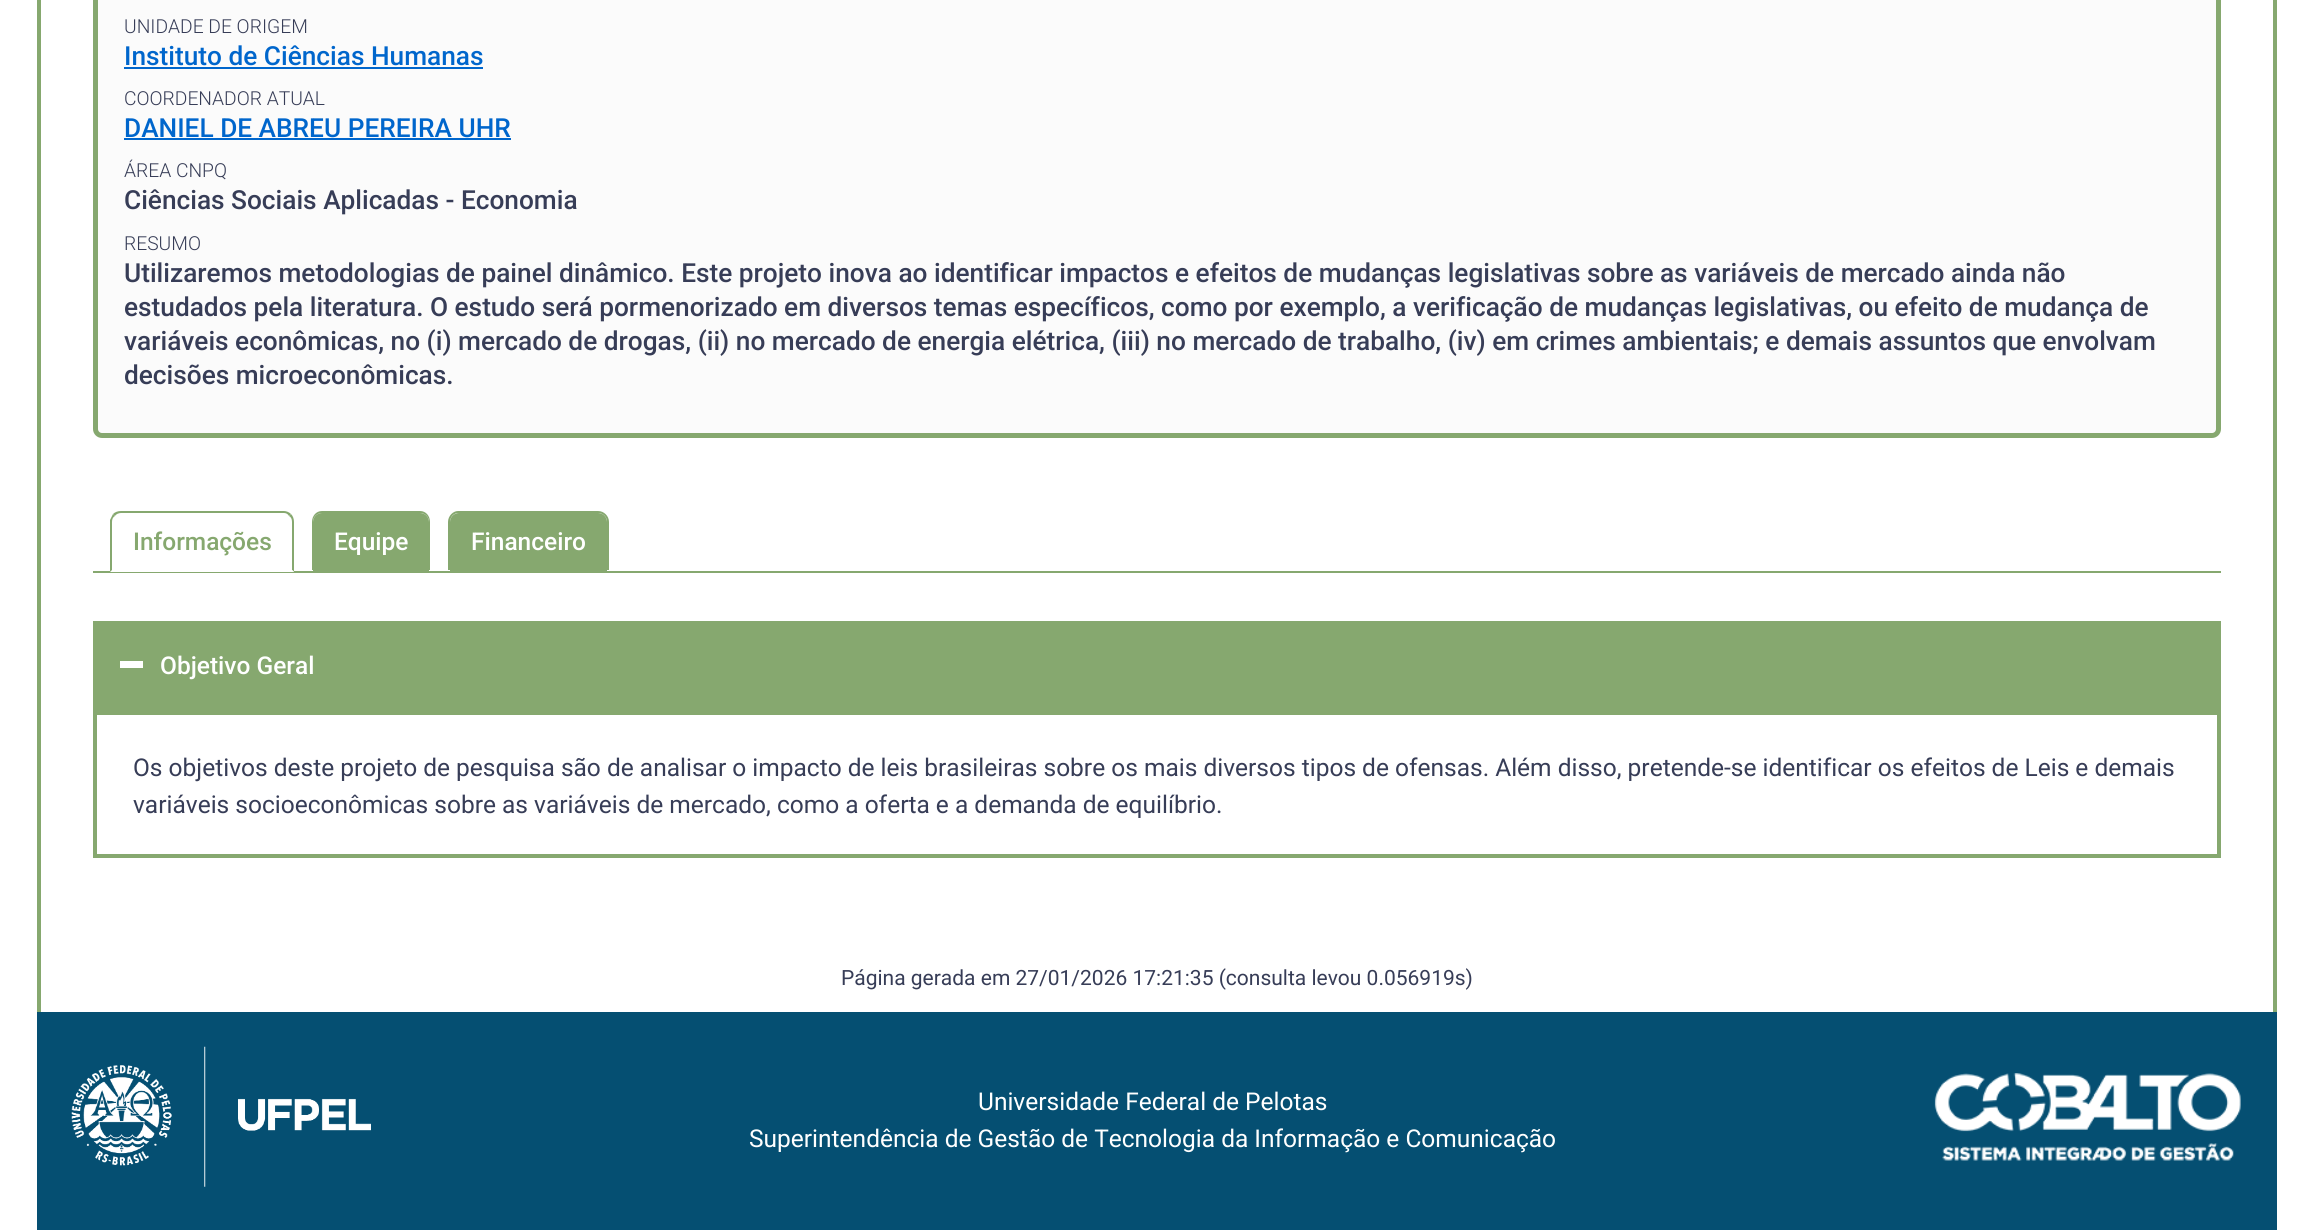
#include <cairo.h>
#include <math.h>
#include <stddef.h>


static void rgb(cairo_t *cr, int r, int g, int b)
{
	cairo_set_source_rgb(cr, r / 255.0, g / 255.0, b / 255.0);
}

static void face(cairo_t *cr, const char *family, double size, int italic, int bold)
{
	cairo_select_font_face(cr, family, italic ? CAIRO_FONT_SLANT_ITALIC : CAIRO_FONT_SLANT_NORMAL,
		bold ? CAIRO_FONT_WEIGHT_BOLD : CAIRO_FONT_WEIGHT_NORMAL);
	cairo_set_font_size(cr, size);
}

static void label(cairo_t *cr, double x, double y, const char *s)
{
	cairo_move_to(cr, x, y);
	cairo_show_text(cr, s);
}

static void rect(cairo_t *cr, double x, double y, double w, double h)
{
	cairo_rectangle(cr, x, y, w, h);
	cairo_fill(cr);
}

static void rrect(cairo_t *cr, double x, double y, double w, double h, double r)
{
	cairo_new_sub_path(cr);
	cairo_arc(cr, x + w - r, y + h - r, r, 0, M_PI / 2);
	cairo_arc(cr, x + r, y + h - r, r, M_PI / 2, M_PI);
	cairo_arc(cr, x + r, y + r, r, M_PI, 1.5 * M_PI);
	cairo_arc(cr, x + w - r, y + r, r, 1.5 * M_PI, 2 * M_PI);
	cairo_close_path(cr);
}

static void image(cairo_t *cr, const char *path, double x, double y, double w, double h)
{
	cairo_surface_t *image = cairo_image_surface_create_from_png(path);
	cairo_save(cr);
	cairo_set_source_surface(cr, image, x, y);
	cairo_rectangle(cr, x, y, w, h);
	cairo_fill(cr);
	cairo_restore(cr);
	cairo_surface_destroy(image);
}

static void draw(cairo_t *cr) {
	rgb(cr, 255, 255, 255);
	cairo_paint(cr);
	rgb(cr, 134, 168, 111);
	rect(cr, 2273, 0, 4, 1012);
	rect(cr, 37, 0, 4, 1012);
	rgb(cr, 251, 251, 251);
	rrect(cr, 95.5, -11.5, 2123, 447, 6.5);
	cairo_fill_preserve(cr);
	rgb(cr, 134, 168, 111);
	cairo_set_line_width(cr, 5);
	cairo_stroke(cr);
	face(cr, "Roboto Light", 19.25, 0, 0);
	rgb(cr, 55, 61, 87);
	label(cr, 124, 33, "UNIDADE DE ORIGEM");
	face(cr, "Roboto Medium", 26.25, 0, 0);
	rgb(cr, 0, 102, 204);
	label(cr, 124, 65, "Instituto de Ciências Humanas");
	rect(cr, 124, 67, 359, 2);
	face(cr, "Roboto Light", 19.25, 0, 0);
	rgb(cr, 55, 61, 87);
	label(cr, 124, 105, "COORDENADOR ATUAL");
	face(cr, "Roboto Medium", 26.25, 0, 0);
	rgb(cr, 0, 102, 204);
	label(cr, 124, 137, "DANIEL DE ABREU PEREIRA UHR");
	rect(cr, 124, 138, 387, 2);
	face(cr, "Roboto Light", 19.25, 0, 0);
	rgb(cr, 55, 61, 87);
	label(cr, 124, 177, "ÁREA CNPQ");
	face(cr, "Roboto Medium", 26.25, 0, 0);
	label(cr, 124, 209, "Ciências Sociais Aplicadas - Economia");
	face(cr, "Roboto Light", 19.25, 0, 0);
	label(cr, 124, 250, "RESUMO");
	face(cr, "Roboto Medium", 26.25, 0, 0);
	label(cr, 124, 282, "Utilizaremos metodologias de painel dinâmico. Este projeto inova ao identificar impactos e efeitos de mudanças legislativas sobre as variáveis de mercado ainda não");
	label(cr, 124, 316, "estudados pela literatura. O estudo será pormenorizado em diversos temas específicos, como por exemplo, a verificação de mudanças legislativas, ou efeito de mudança de");
	label(cr, 124, 350, "variáveis econômicas, no (i) mercado de drogas, (ii) no mercado de energia elétrica, (iii) no mercado de trabalho, (iv) em crimes ambientais; e demais assuntos que envolvam");
	label(cr, 124, 384, "decisões microeconômicas.");
	rgb(cr, 134, 168, 111);
	rect(cr, 93, 571, 2128, 2);
	rgb(cr, 255, 255, 255);
	cairo_new_path(cr);
	cairo_move_to(cr, 121, 511);
	cairo_line_to(cr, 283, 511);
	cairo_curve_to(cr, 289, 511, 294, 516, 294, 522);
	cairo_line_to(cr, 294, 572);
	cairo_line_to(cr, 110, 572);
	cairo_line_to(cr, 110, 522);
	cairo_curve_to(cr, 110, 516, 115, 511, 121, 511);
	cairo_close_path(cr);
	cairo_fill(cr);
	rgb(cr, 134, 168, 111);
	cairo_new_path(cr);
	cairo_move_to(cr, 121, 511);
	cairo_curve_to(cr, 118, 511, 115, 512, 113, 514);
	cairo_line_to(cr, 115, 516);
	cairo_curve_to(cr, 116, 514, 119, 513, 121, 513);
	cairo_line_to(cr, 284, 513);
	cairo_curve_to(cr, 286, 513, 288, 514, 289, 516);
	cairo_line_to(cr, 291, 514);
	cairo_curve_to(cr, 289, 512, 286, 511, 284, 511);
	cairo_close_path(cr);
	cairo_fill(cr);
	cairo_new_path(cr);
	cairo_move_to(cr, 294, 572);
	cairo_line_to(cr, 294, 522);
	cairo_curve_to(cr, 294, 519, 293, 516, 291, 514);
	cairo_line_to(cr, 289, 516);
	cairo_curve_to(cr, 291, 517, 292, 519, 292, 522);
	cairo_line_to(cr, 292, 570);
	cairo_close_path(cr);
	cairo_fill(cr);
	rgb(cr, 255, 255, 255);
	cairo_new_path(cr);
	cairo_move_to(cr, 294, 572);
	cairo_line_to(cr, 110, 572);
	cairo_line_to(cr, 112, 570);
	cairo_line_to(cr, 292, 570);
	cairo_close_path(cr);
	cairo_fill(cr);
	rgb(cr, 134, 168, 111);
	cairo_new_path(cr);
	cairo_move_to(cr, 110, 520);
	cairo_curve_to(cr, 111, 518, 112, 516, 113, 514);
	cairo_line_to(cr, 115, 516);
	cairo_curve_to(cr, 113, 517, 112, 519, 112, 522);
	cairo_line_to(cr, 112, 570);
	cairo_line_to(cr, 110, 572);
	cairo_close_path(cr);
	cairo_fill(cr);
	face(cr, "Roboto Medium", 24.5, 0, 0);
	label(cr, 133, 550, "Informações");
	cairo_new_path(cr);
	cairo_move_to(cr, 322, 513);
	cairo_line_to(cr, 420, 513);
	cairo_curve_to(cr, 425, 513, 429, 517, 429, 522);
	cairo_line_to(cr, 429, 571);
	cairo_line_to(cr, 313, 571);
	cairo_line_to(cr, 313, 522);
	cairo_curve_to(cr, 313, 517, 317, 513, 322, 513);
	cairo_close_path(cr);
	cairo_fill(cr);
	cairo_set_fill_rule(cr, CAIRO_FILL_RULE_EVEN_ODD);
	cairo_new_path(cr);
	cairo_move_to(cr, 322, 511);
	cairo_line_to(cr, 420, 511);
	cairo_curve_to(cr, 426, 511, 430, 516, 430, 522);
	cairo_line_to(cr, 430, 570);
	cairo_line_to(cr, 312, 570);
	cairo_line_to(cr, 312, 522);
	cairo_curve_to(cr, 312, 516, 316, 511, 322, 511);
	cairo_close_path(cr);
	cairo_move_to(cr, 322, 513);
	cairo_line_to(cr, 420, 513);
	cairo_curve_to(cr, 425, 513, 429, 517, 429, 522);
	cairo_line_to(cr, 429, 570);
	cairo_line_to(cr, 313, 570);
	cairo_line_to(cr, 313, 522);
	cairo_curve_to(cr, 313, 517, 317, 513, 322, 513);
	cairo_close_path(cr);
	cairo_fill(cr);
	rgb(cr, 255, 255, 255);
	label(cr, 334, 550, "Equipe");
	rgb(cr, 134, 168, 111);
	cairo_new_path(cr);
	cairo_move_to(cr, 459, 513);
	cairo_line_to(cr, 598, 513);
	cairo_curve_to(cr, 603, 513, 607, 517, 607, 522);
	cairo_line_to(cr, 607, 571);
	cairo_line_to(cr, 450, 571);
	cairo_line_to(cr, 450, 522);
	cairo_curve_to(cr, 450, 517, 454, 513, 459, 513);
	cairo_close_path(cr);
	cairo_fill(cr);
	cairo_new_path(cr);
	cairo_move_to(cr, 458, 511);
	cairo_line_to(cr, 598, 511);
	cairo_curve_to(cr, 604, 511, 609, 516, 609, 522);
	cairo_line_to(cr, 609, 570);
	cairo_line_to(cr, 448, 570);
	cairo_line_to(cr, 448, 522);
	cairo_curve_to(cr, 448, 516, 453, 511, 458, 511);
	cairo_close_path(cr);
	cairo_move_to(cr, 458, 513);
	cairo_line_to(cr, 598, 513);
	cairo_curve_to(cr, 603, 513, 607, 517, 607, 522);
	cairo_line_to(cr, 607, 570);
	cairo_line_to(cr, 450, 570);
	cairo_line_to(cr, 450, 522);
	cairo_curve_to(cr, 450, 517, 454, 513, 458, 513);
	cairo_close_path(cr);
	cairo_fill(cr);
	rgb(cr, 255, 255, 255);
	label(cr, 471, 550, "Financeiro");
	rgb(cr, 134, 168, 111);
	rect(cr, 93, 621, 2128, 90);
	rgb(cr, 255, 255, 255);
	rect(cr, 120, 661, 23, 7);
	label(cr, 160, 674, "Objetivo Geral");
	cairo_rectangle(cr, 95, 713, 2124, 143);
	rgb(cr, 134, 168, 111);
	cairo_set_line_width(cr, 4);
	cairo_stroke(cr);
	face(cr, "Roboto", 24.5, 0, 0);
	rgb(cr, 55, 61, 87);
	label(cr, 133, 776, "Os objetivos deste projeto de pesquisa são de analisar o impacto de leis brasileiras sobre os mais diversos tipos de ofensas. Além disso, pretende-se identificar os efeitos de Leis e demais");
	label(cr, 133, 813, "variáveis socioeconômicas sobre as variáveis de mercado, como a oferta e a demanda de equilíbrio.");
	face(cr, "Roboto", 21, 0, 0);
	label(cr, 841, 985, "Página gerada em 27/01/2026 17:21:35 (consulta levou 0.056919s)");
	rgb(cr, 5, 79, 114);
	rect(cr, 37, 1012, 2240, 218);
	image(cr, "image0.png", 71, 1046, 300, 141);
	face(cr, "Roboto", 24.5, 0, 0);
	rgb(cr, 255, 255, 255);
	label(cr, 978, 1110, "Universidade Federal de Pelotas");
	label(cr, 749, 1147, "Superintendência de Gestão de Tecnologia da Informação e Comunicação");
	image(cr, "image1.png", 1934, 1073, 307, 88);
}

int main(void) {
	cairo_surface_t *surface = cairo_image_surface_create(CAIRO_FORMAT_RGB24, 2313, 1230);
	cairo_t *cr = cairo_create(surface);
	cairo_font_options_t *options = cairo_font_options_create();
	cairo_font_options_set_hint_metrics(options, CAIRO_HINT_METRICS_OFF);
	cairo_font_options_set_hint_style(options, CAIRO_HINT_STYLE_NONE);
	cairo_set_font_options(cr, options);
	cairo_set_miter_limit(cr, 4);
	draw(cr);
	cairo_surface_write_to_png(surface, "render.png");
	cairo_font_options_destroy(options);
	cairo_destroy(cr);
	cairo_surface_destroy(surface);
	return 0;
}
